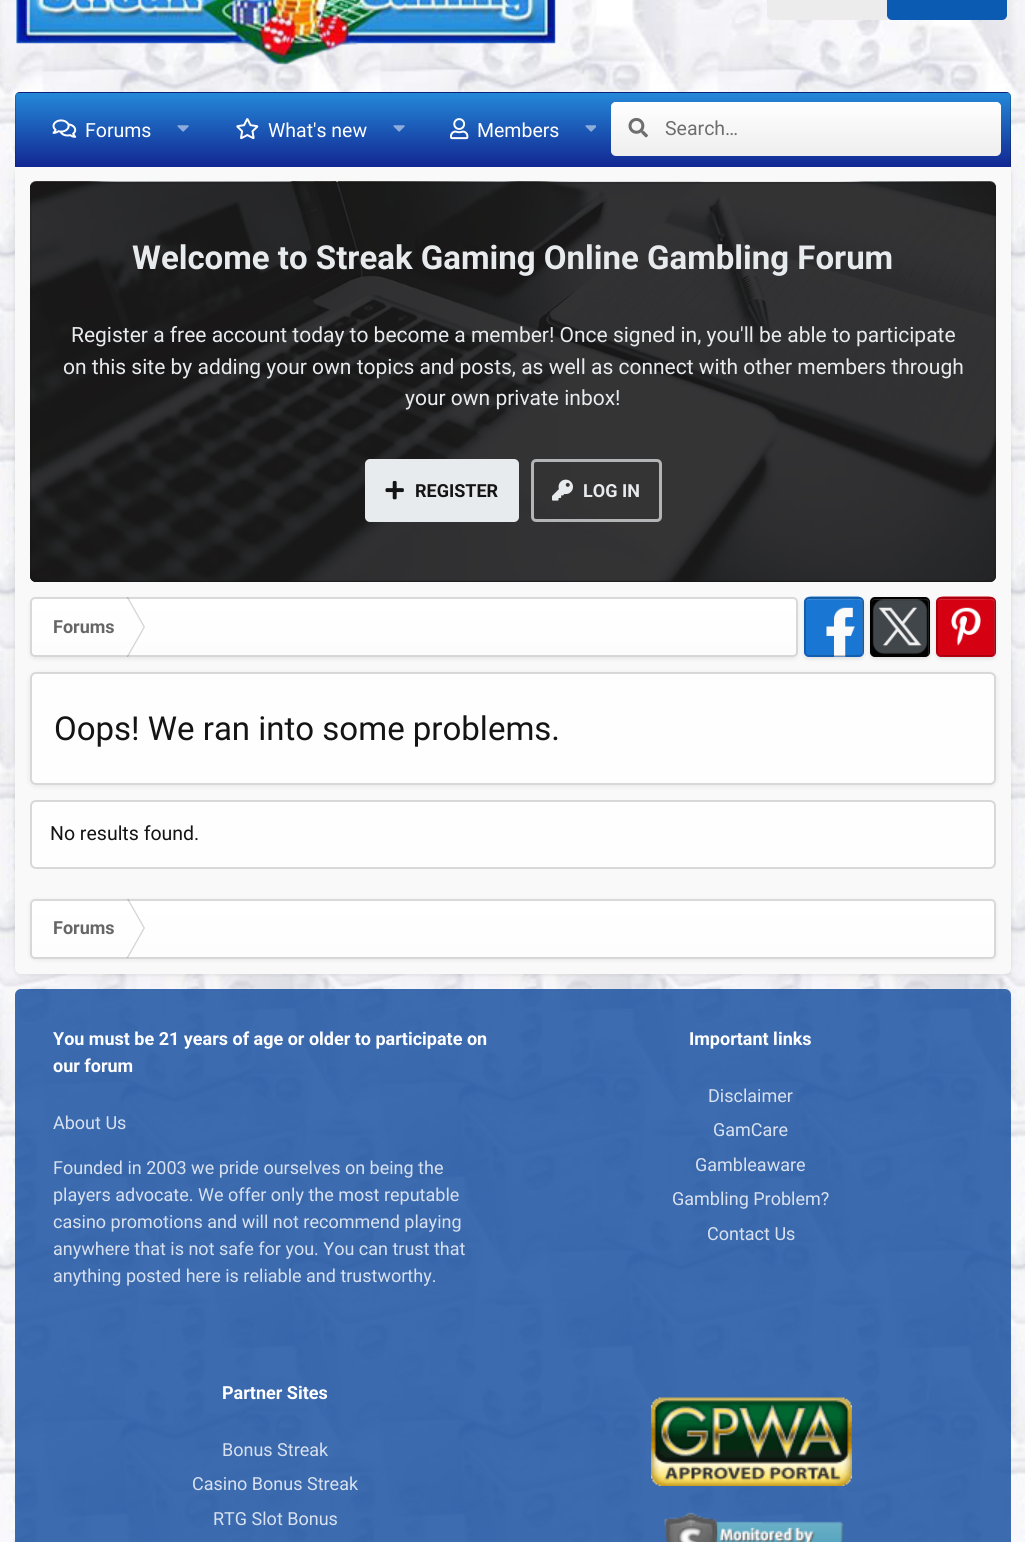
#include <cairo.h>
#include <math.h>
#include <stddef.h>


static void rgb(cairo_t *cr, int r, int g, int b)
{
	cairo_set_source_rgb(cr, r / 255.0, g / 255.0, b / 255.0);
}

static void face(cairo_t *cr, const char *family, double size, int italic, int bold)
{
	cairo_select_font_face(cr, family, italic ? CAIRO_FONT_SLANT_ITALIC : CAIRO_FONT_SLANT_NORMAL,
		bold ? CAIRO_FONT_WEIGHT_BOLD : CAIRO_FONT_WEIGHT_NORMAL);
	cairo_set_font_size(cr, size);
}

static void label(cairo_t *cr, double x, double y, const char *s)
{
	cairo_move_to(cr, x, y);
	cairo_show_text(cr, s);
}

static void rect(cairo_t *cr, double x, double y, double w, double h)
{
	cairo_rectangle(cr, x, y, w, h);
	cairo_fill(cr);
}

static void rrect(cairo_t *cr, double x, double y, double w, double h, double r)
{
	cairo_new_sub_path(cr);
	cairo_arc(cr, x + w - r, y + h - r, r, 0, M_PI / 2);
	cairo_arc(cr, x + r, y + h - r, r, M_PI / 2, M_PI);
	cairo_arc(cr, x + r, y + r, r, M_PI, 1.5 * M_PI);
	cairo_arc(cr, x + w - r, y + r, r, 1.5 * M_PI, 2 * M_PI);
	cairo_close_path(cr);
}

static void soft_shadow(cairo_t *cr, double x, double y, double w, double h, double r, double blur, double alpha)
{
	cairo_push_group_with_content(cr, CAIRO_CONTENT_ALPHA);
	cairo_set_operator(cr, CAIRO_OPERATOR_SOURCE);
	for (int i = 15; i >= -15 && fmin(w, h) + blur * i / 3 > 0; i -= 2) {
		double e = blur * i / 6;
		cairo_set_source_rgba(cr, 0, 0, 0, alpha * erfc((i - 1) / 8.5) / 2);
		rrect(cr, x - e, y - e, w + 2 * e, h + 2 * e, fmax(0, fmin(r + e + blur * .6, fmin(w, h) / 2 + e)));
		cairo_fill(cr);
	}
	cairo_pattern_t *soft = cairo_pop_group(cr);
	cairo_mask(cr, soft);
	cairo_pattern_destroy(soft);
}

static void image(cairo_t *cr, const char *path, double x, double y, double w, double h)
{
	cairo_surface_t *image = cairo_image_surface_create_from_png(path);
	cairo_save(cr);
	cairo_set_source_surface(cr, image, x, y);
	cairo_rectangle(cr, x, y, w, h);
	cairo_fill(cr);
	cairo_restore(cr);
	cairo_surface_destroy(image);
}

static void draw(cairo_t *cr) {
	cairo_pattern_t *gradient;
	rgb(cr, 255, 255, 255);
	cairo_paint(cr);
	image(cr, "image0.png", 0, 0, 1025, 1542);
	image(cr, "image1.png", 16, 0, 540, 66);
	rgb(cr, 236, 236, 236);
	rrect(cr, 767, -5, 244, 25, 5);
	cairo_fill(cr);
	rgb(cr, 12, 91, 179);
	rrect(cr, 887, -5, 120, 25, 5);
	cairo_fill(cr);
	cairo_save(cr);
	cairo_new_path(cr);
	cairo_move_to(cr, 20, 92);
	cairo_line_to(cr, 1006, 92);
	cairo_curve_to(cr, 1009, 92, 1011, 94, 1011, 97);
	cairo_line_to(cr, 1011, 167);
	cairo_line_to(cr, 15, 167);
	cairo_line_to(cr, 15, 97);
	cairo_curve_to(cr, 15, 94, 17, 92, 20, 92);
	cairo_close_path(cr);
	cairo_clip(cr);
	gradient = cairo_pattern_create_linear(513, 19, 513, 93);
	cairo_pattern_add_color_stop_rgba(gradient, 0, 0.141, 0.533, 0.847, 1);
	cairo_pattern_add_color_stop_rgba(gradient, 1, 0.071, 0.153, 0.573, 1);
	cairo_set_source(cr, gradient);
	cairo_pattern_destroy(gradient);
	rect(cr, 15, 92, 996, 1);
	cairo_restore(cr);
	rgb(cr, 0, 0, 0);
	soft_shadow(cr, 15, 168, 996, 807, 6, 2, 0.08);
	cairo_set_source_rgba(cr, 0.098, 0.318, 0.635, 0.84);
	rrect(cr, 15, 989, 996, 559, 6);
	cairo_fill(cr);
	rgb(cr, 0, 0, 0);
	soft_shadow(cr, 15, 167, 996, 807, 6, 15, 0.06);
	cairo_save(cr);
	cairo_new_path(cr);
	cairo_move_to(cr, 20, 92);
	cairo_line_to(cr, 1006, 92);
	cairo_curve_to(cr, 1009, 92, 1011, 94, 1011, 97);
	cairo_line_to(cr, 1011, 167);
	cairo_line_to(cr, 15, 167);
	cairo_line_to(cr, 15, 97);
	cairo_curve_to(cr, 15, 94, 17, 92, 20, 92);
	cairo_close_path(cr);
	cairo_clip(cr);
	gradient = cairo_pattern_create_linear(513, 93, 513, 167);
	cairo_pattern_add_color_stop_rgba(gradient, 0, 0.141, 0.533, 0.847, 1);
	cairo_pattern_add_color_stop_rgba(gradient, 1, 0.071, 0.153, 0.573, 1);
	cairo_set_source(cr, gradient);
	cairo_pattern_destroy(gradient);
	rect(cr, 15, 93, 996, 74);
	cairo_restore(cr);
	cairo_set_source_rgba(cr, 0, 0, 0, 0.2);
	cairo_set_fill_rule(cr, CAIRO_FILL_RULE_EVEN_ODD);
	cairo_new_path(cr);
	cairo_move_to(cr, 20, 92);
	cairo_line_to(cr, 1006, 92);
	cairo_curve_to(cr, 1009, 92, 1011, 94, 1011, 96);
	cairo_line_to(cr, 1011, 166);
	cairo_line_to(cr, 15, 166);
	cairo_line_to(cr, 15, 96);
	cairo_curve_to(cr, 15, 94, 17, 92, 20, 92);
	cairo_close_path(cr);
	cairo_move_to(cr, 20, 93);
	cairo_line_to(cr, 1006, 93);
	cairo_curve_to(cr, 1008, 93, 1010, 94, 1010, 96);
	cairo_line_to(cr, 1010, 166);
	cairo_line_to(cr, 16, 166);
	cairo_line_to(cr, 16, 96);
	cairo_curve_to(cr, 16, 94, 18, 93, 20, 93);
	cairo_close_path(cr);
	cairo_fill(cr);
	image(cr, "image2.png", 52, 119, 25, 19);
	face(cr, "Roboto", 19.5, 0, 0);
	rgb(cr, 255, 255, 255);
	label(cr, 85, 137, "Forums");
	image(cr, "image3.png", 177, 125, 12, 7);
	image(cr, "image4.png", 236, 118, 23, 22);
	label(cr, 268, 137, "What's new");
	image(cr, "image3.png", 393, 125, 12, 7);
	image(cr, "image5.png", 450, 118, 19, 22);
	label(cr, 477, 137, "Members");
	image(cr, "image6.png", 585, 125, 11, 7);
	rgb(cr, 238, 238, 238);
	rrect(cr, 611, 102, 390, 54, 5);
	cairo_fill(cr);
	gradient = cairo_pattern_create_linear(806, 102, 806, 156);
	cairo_pattern_add_color_stop_rgba(gradient, 0, 1, 1, 1, 1);
	cairo_pattern_add_color_stop_rgba(gradient, 1, 1, 1, 1, 0);
	cairo_set_source(cr, gradient);
	cairo_pattern_destroy(gradient);
	rrect(cr, 611, 102, 390, 54, 5);
	cairo_fill(cr);
	image(cr, "image7.png", 628, 117, 20, 21);
	rgb(cr, 110, 110, 110);
	label(cr, 665, 135, "Search…");
	rgb(cr, 249, 249, 249);
	cairo_new_path(cr);
	cairo_move_to(cr, 15, 167);
	cairo_line_to(cr, 1011, 167);
	cairo_line_to(cr, 1011, 968);
	cairo_curve_to(cr, 1011, 971.5, 1008.5, 974, 1005, 974);
	cairo_line_to(cr, 21, 974);
	cairo_curve_to(cr, 17.5, 974, 15, 971.5, 15, 968);
	cairo_close_path(cr);
	cairo_fill(cr);
	rgb(cr, 19, 20, 21);
	rrect(cr, 30, 182, 966, 400, 6);
	cairo_fill(cr);
	image(cr, "image8.png", 30, 181, 966, 401);
	rrect(cr, 31, 183, 964, 398, 5);
	cairo_set_source_rgba(cr, 0, 0, 0, 0.15);
	cairo_stroke(cr);
	cairo_set_source_rgba(cr, 0.075, 0.078, 0.082, 0.85);
	rrect(cr, 30, 182, 966, 400, 6);
	cairo_fill(cr);
	face(cr, "Roboto", 33, 0, 1);
	rgb(cr, 232, 235, 237);
	label(cr, 132, 269, "Welcome to Streak Gaming Online Gambling Forum");
	face(cr, "Roboto", 21, 0, 0);
	label(cr, 71, 342, "Register a free account today to become a member! Once signed in, you'll be able to participate");
	label(cr, 63, 374, "on this site by adding your own topics and posts, as well as connect with other members through");
	label(cr, 405, 405, "your own private inbox!");
	rrect(cr, 365, 459, 154, 63, 5);
	cairo_fill(cr);
	image(cr, "image9.png", 385, 480, 19, 20);
	face(cr, "Roboto", 18, 0, 1);
	rgb(cr, 20, 20, 20);
	label(cr, 415, 497, "REGISTER");
	rrect(cr, 532.5, 460.5, 128, 60, 3.5);
	cairo_set_source_rgba(cr, 0.91, 0.922, 0.929, 0.7);
	cairo_set_line_width(cr, 3);
	cairo_stroke(cr);
	image(cr, "image10.png", 552, 479, 21, 22);
	rgb(cr, 232, 235, 237);
	label(cr, 583, 497, "LOG IN");
	rgb(cr, 0, 0, 0);
	soft_shadow(cr, 30, 599, 768, 60, 5, 2, 0.07);
	rgb(cr, 253, 253, 253);
	rrect(cr, 30, 597, 768, 60, 5);
	cairo_fill(cr);
	gradient = cairo_pattern_create_linear(414, 597, 414, 657);
	cairo_pattern_add_color_stop_rgba(gradient, 0, 1, 1, 1, 1);
	cairo_pattern_add_color_stop_rgba(gradient, 1, 1, 1, 1, 0);
	cairo_set_source(cr, gradient);
	cairo_pattern_destroy(gradient);
	rrect(cr, 30, 597, 768, 60, 5);
	cairo_fill(cr);
	rgb(cr, 213, 213, 213);
	cairo_set_fill_rule(cr, CAIRO_FILL_RULE_WINDING);
	cairo_new_path(cr);
	cairo_move_to(cr, 126.5, 597);
	cairo_line_to(cr, 128, 597);
	cairo_line_to(cr, 145, 627);
	cairo_line_to(cr, 143.5, 627);
	cairo_close_path(cr);
	cairo_fill(cr);
	rgb(cr, 212, 212, 212);
	cairo_new_path(cr);
	cairo_move_to(cr, 143.5, 627);
	cairo_line_to(cr, 145, 627);
	cairo_line_to(cr, 128, 657);
	cairo_line_to(cr, 126.5, 657);
	cairo_close_path(cr);
	cairo_fill(cr);
	rrect(cr, 31, 598, 766, 58, 4);
	cairo_set_source_rgba(cr, 0, 0, 0, 0.15);
	cairo_set_line_width(cr, 2);
	cairo_stroke(cr);
	rgb(cr, 102, 102, 102);
	label(cr, 53, 633, "Forums");
	rgb(cr, 0, 0, 0);
	soft_shadow(cr, 804, 599, 60, 60, 5, 2, 0.1);
	rgb(cr, 24, 119, 242);
	rrect(cr, 804, 597, 60, 60, 5);
	cairo_fill(cr);
	image(cr, "image11.png", 804, 596, 60, 61);
	cairo_set_source_rgba(cr, 1, 1, 1, 0.15);
	cairo_new_path(cr);
	cairo_move_to(cr, 808, 600);
	cairo_line_to(cr, 851, 600);
	cairo_curve_to(cr, 854, 600, 862, 598, 862, 603);
	cairo_line_to(cr, 862, 655);
	cairo_curve_to(cr, 863, 655, 863, 654, 863, 653);
	cairo_line_to(cr, 863, 602);
	cairo_curve_to(cr, 863, 600, 862, 599, 860, 599);
	cairo_line_to(cr, 809, 599);
	cairo_curve_to(cr, 807, 599, 806, 600, 806, 602);
	cairo_line_to(cr, 806, 603);
	cairo_curve_to(cr, 806, 601, 807, 600, 808, 600);
	cairo_close_path(cr);
	cairo_fill(cr);
	rrect(cr, 805, 598, 58, 58, 4);
	cairo_set_source_rgba(cr, 0, 0, 0, 0.2);
	cairo_stroke(cr);
	rgb(cr, 0, 0, 0);
	soft_shadow(cr, 870, 599, 60, 60, 5, 2, 0.1);
	rgb(cr, 0, 0, 0);
	rrect(cr, 870, 597, 60, 60, 5);
	cairo_fill(cr);
	image(cr, "image12.png", 872, 599, 56, 55);
	cairo_set_source_rgba(cr, 1, 1, 1, 0.15);
	cairo_new_path(cr);
	cairo_move_to(cr, 874, 600);
	cairo_line_to(cr, 917, 600);
	cairo_curve_to(cr, 920, 600, 928, 598, 928, 603);
	cairo_line_to(cr, 928, 655);
	cairo_curve_to(cr, 929, 655, 929, 654, 929, 653);
	cairo_line_to(cr, 929, 602);
	cairo_curve_to(cr, 929, 600, 928, 599, 926, 599);
	cairo_line_to(cr, 875, 599);
	cairo_curve_to(cr, 873, 599, 872, 600, 872, 602);
	cairo_line_to(cr, 872, 603);
	cairo_curve_to(cr, 872, 601, 873, 600, 874, 600);
	cairo_close_path(cr);
	cairo_fill(cr);
	rrect(cr, 871, 598, 58, 58, 4);
	cairo_set_source_rgba(cr, 0, 0, 0, 0.2);
	cairo_stroke(cr);
	rgb(cr, 0, 0, 0);
	soft_shadow(cr, 936, 599, 60, 60, 5, 2, 0.1);
	rgb(cr, 230, 0, 35);
	rrect(cr, 936, 597, 60, 60, 5);
	cairo_fill(cr);
	image(cr, "image13.png", 936, 596, 60, 61);
	cairo_set_source_rgba(cr, 1, 1, 1, 0.15);
	cairo_new_path(cr);
	cairo_move_to(cr, 940, 600);
	cairo_line_to(cr, 983, 600);
	cairo_curve_to(cr, 986, 600, 994, 598, 994, 603);
	cairo_line_to(cr, 994, 655);
	cairo_curve_to(cr, 995, 655, 995, 654, 995, 653);
	cairo_line_to(cr, 995, 602);
	cairo_curve_to(cr, 995, 600, 994, 599, 992, 599);
	cairo_line_to(cr, 941, 599);
	cairo_curve_to(cr, 939, 599, 938, 600, 938, 602);
	cairo_line_to(cr, 938, 603);
	cairo_curve_to(cr, 938, 601, 939, 600, 940, 600);
	cairo_close_path(cr);
	cairo_fill(cr);
	rrect(cr, 937, 598, 58, 58, 4);
	cairo_set_source_rgba(cr, 0, 0, 0, 0.2);
	cairo_stroke(cr);
	rgb(cr, 0, 0, 0);
	soft_shadow(cr, 30, 674, 966, 112, 6, 3, 0.08);
	rgb(cr, 254, 254, 254);
	rrect(cr, 30, 672, 966, 113, 6);
	cairo_fill(cr);
	rrect(cr, 31, 673, 964, 111, 5);
	cairo_set_source_rgba(cr, 0, 0, 0, 0.15);
	cairo_stroke(cr);
	face(cr, "Roboto", 33, 0, 0);
	rgb(cr, 20, 20, 20);
	label(cr, 54, 740, "Oops! We ran into some problems.");
	rgb(cr, 254, 254, 254);
	rrect(cr, 31, 801, 964, 67, 5);
	cairo_fill_preserve(cr);
	rgb(cr, 216, 216, 216);
	cairo_stroke(cr);
	face(cr, "Roboto", 19.5, 0, 0);
	rgb(cr, 20, 20, 20);
	label(cr, 50, 840, "No results found.");
	rgb(cr, 0, 0, 0);
	soft_shadow(cr, 30, 900, 966, 60, 5, 2, 0.07);
	rgb(cr, 253, 253, 253);
	rrect(cr, 30, 899, 966, 60, 5);
	cairo_fill(cr);
	gradient = cairo_pattern_create_linear(513, 899, 513, 959);
	cairo_pattern_add_color_stop_rgba(gradient, 0, 1, 1, 1, 1);
	cairo_pattern_add_color_stop_rgba(gradient, 1, 1, 1, 1, 0);
	cairo_set_source(cr, gradient);
	cairo_pattern_destroy(gradient);
	rrect(cr, 30, 899, 966, 60, 5);
	cairo_fill(cr);
	rgb(cr, 213, 213, 213);
	cairo_new_path(cr);
	cairo_move_to(cr, 128.5, 899);
	cairo_line_to(cr, 145, 928);
	cairo_line_to(cr, 143.5, 928);
	cairo_line_to(cr, 127, 899);
	cairo_close_path(cr);
	cairo_fill(cr);
	rgb(cr, 212, 212, 212);
	cairo_new_path(cr);
	cairo_move_to(cr, 143.5, 928);
	cairo_line_to(cr, 145, 928);
	cairo_line_to(cr, 128, 958);
	cairo_line_to(cr, 126.5, 958);
	cairo_close_path(cr);
	cairo_fill(cr);
	rrect(cr, 31, 900, 964, 58, 4);
	cairo_set_source_rgba(cr, 0, 0, 0, 0.15);
	cairo_stroke(cr);
	face(cr, "Roboto", 18, 0, 1);
	rgb(cr, 102, 102, 102);
	label(cr, 53, 934, "Forums");
	rgb(cr, 255, 255, 255);
	label(cr, 53, 1045, "You must be 21 years of age or older to participate on");
	label(cr, 53, 1072, "our forum");
	face(cr, "Roboto", 18, 0, 0);
	rgb(cr, 216, 225, 239);
	label(cr, 53, 1129, "About Us");
	label(cr, 53, 1174, "Founded in 2003 we pride ourselves on being the");
	label(cr, 53, 1201, "players advocate. We offer only the most reputable");
	label(cr, 53, 1228, "casino promotions and will not recommend playing");
	label(cr, 53, 1255, "anywhere that is not safe for you. You can trust that");
	label(cr, 53, 1282, "anything posted here is reliable and trustworthy.");
	face(cr, "Roboto", 18, 0, 1);
	rgb(cr, 255, 255, 255);
	label(cr, 689, 1045, "Important links");
	face(cr, "Roboto", 18, 0, 0);
	rgb(cr, 216, 225, 239);
	label(cr, 708, 1102, "Disclaimer");
	label(cr, 713, 1136, "GamCare");
	label(cr, 695, 1171, "Gambleaware");
	label(cr, 672, 1205, "Gambling Problem?");
	label(cr, 707, 1240, "Contact Us");
	face(cr, "Roboto", 18, 0, 1);
	rgb(cr, 255, 255, 255);
	label(cr, 222, 1399, "Partner Sites");
	face(cr, "Roboto", 18, 0, 0);
	rgb(cr, 216, 225, 239);
	label(cr, 222, 1456, "Bonus Streak");
	label(cr, 192, 1490, "Casino Bonus Streak");
	label(cr, 213, 1525, "RTG Slot Bonus");
	image(cr, "image14.png", 651, 1397, 201, 89);
	image(cr, "image15.png", 664, 1512, 180, 30);
}

int main(void) {
	cairo_surface_t *surface = cairo_image_surface_create(CAIRO_FORMAT_RGB24, 1025, 1542);
	cairo_t *cr = cairo_create(surface);
	cairo_font_options_t *options = cairo_font_options_create();
	cairo_font_options_set_hint_metrics(options, CAIRO_HINT_METRICS_OFF);
	cairo_font_options_set_hint_style(options, CAIRO_HINT_STYLE_NONE);
	cairo_set_font_options(cr, options);
	cairo_set_miter_limit(cr, 4);
	draw(cr);
	cairo_surface_write_to_png(surface, "render.png");
	cairo_font_options_destroy(options);
	cairo_destroy(cr);
	cairo_surface_destroy(surface);
	return 0;
}
